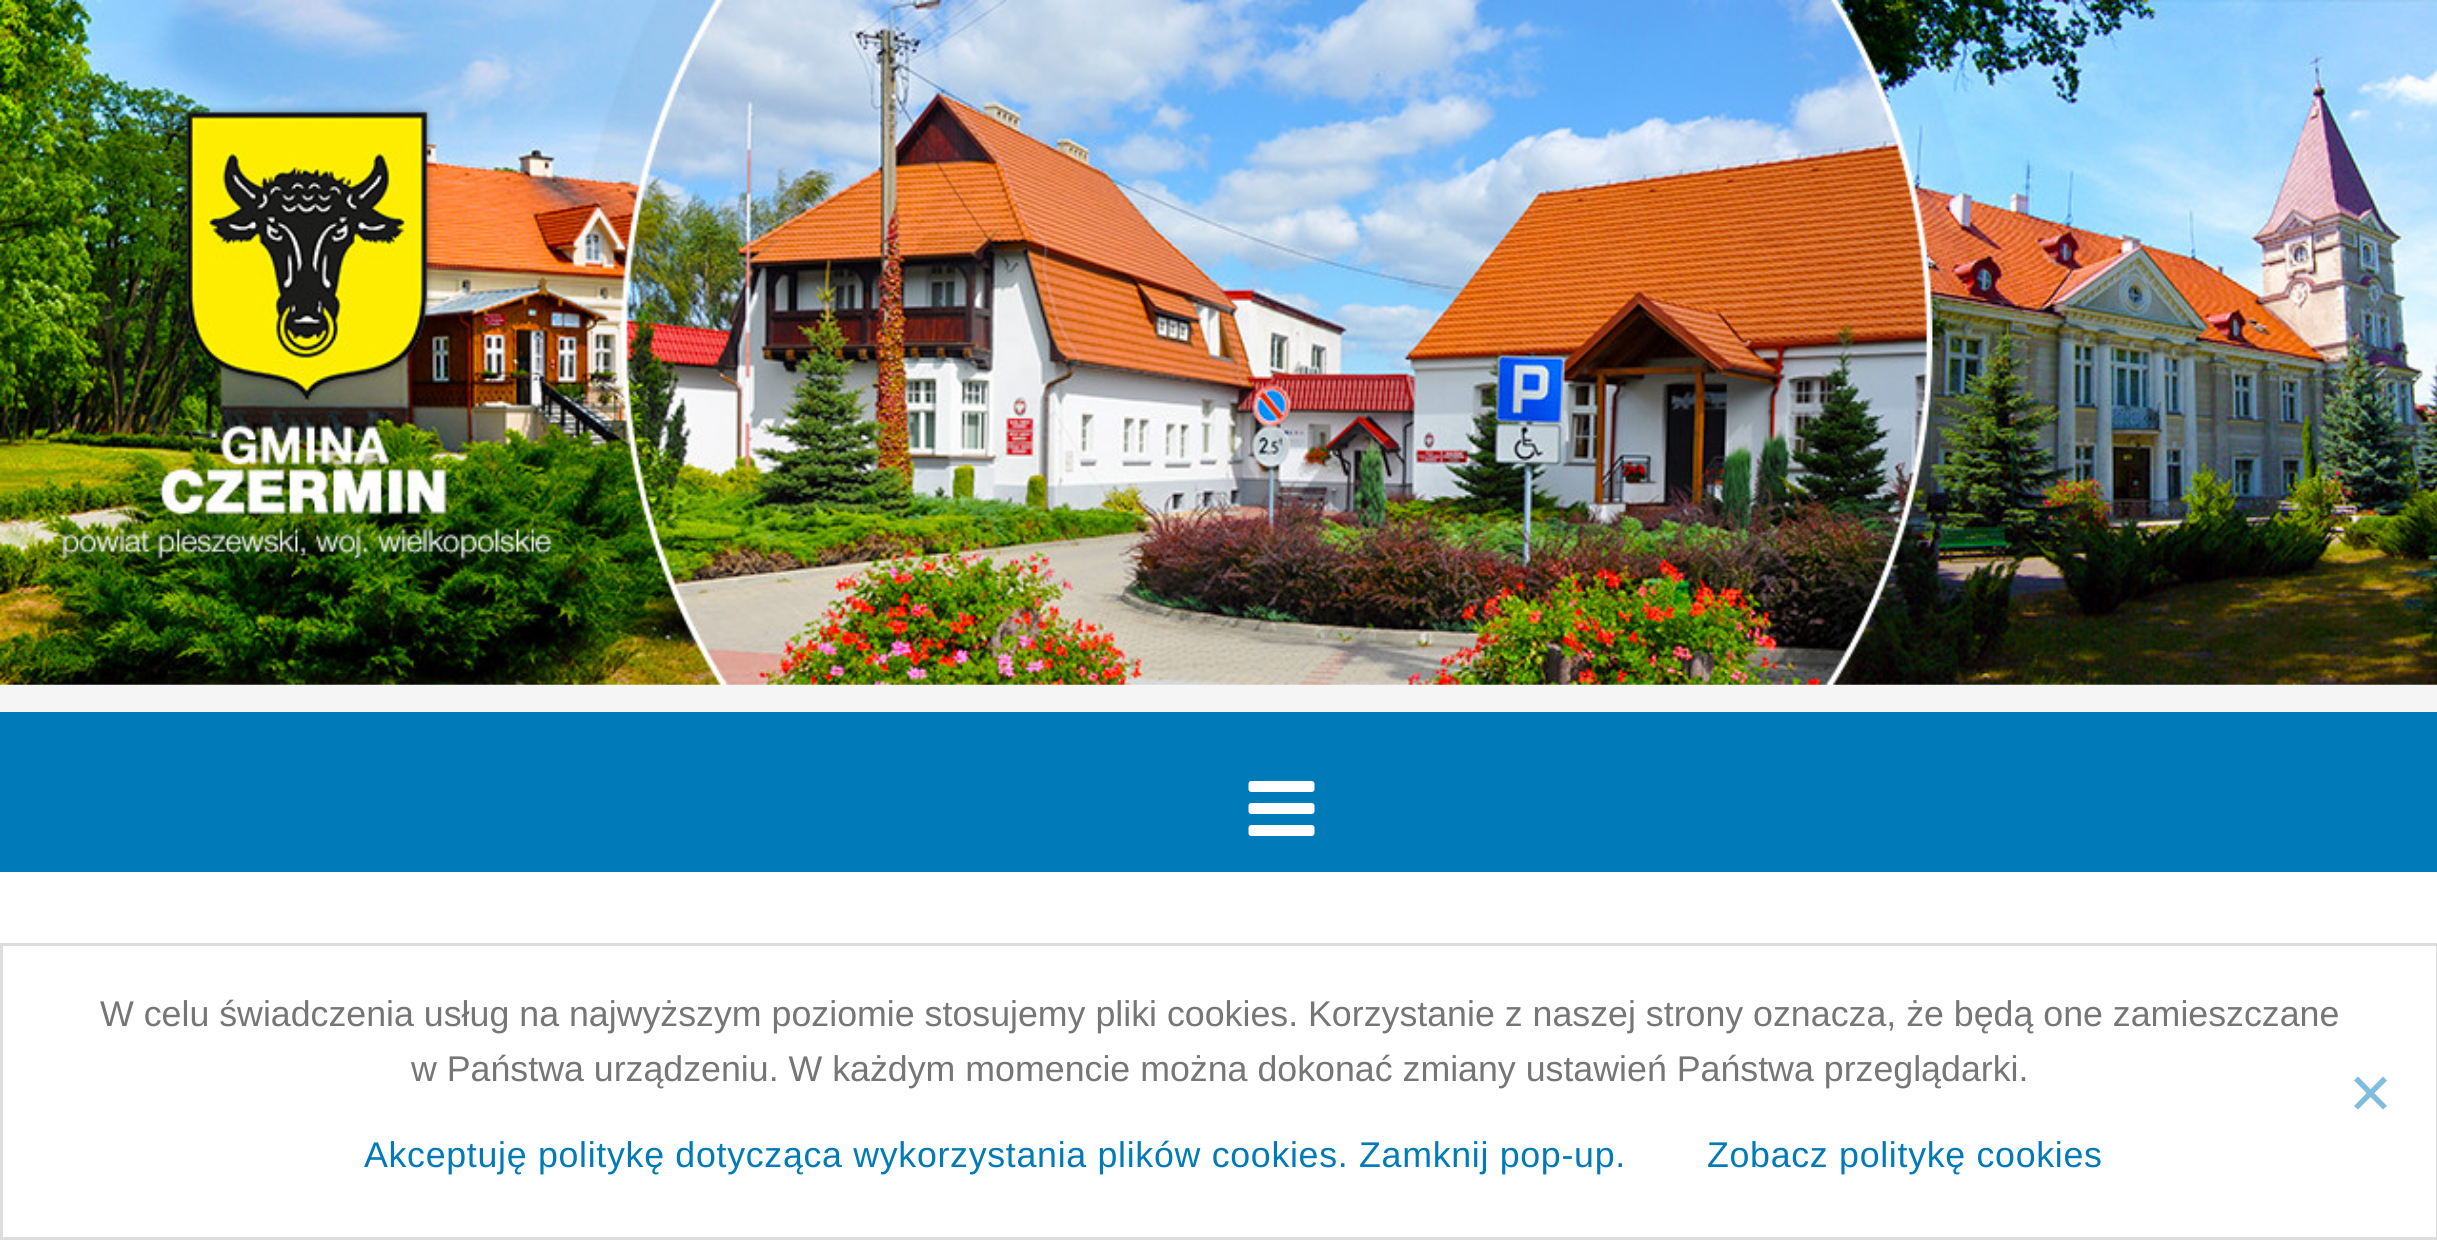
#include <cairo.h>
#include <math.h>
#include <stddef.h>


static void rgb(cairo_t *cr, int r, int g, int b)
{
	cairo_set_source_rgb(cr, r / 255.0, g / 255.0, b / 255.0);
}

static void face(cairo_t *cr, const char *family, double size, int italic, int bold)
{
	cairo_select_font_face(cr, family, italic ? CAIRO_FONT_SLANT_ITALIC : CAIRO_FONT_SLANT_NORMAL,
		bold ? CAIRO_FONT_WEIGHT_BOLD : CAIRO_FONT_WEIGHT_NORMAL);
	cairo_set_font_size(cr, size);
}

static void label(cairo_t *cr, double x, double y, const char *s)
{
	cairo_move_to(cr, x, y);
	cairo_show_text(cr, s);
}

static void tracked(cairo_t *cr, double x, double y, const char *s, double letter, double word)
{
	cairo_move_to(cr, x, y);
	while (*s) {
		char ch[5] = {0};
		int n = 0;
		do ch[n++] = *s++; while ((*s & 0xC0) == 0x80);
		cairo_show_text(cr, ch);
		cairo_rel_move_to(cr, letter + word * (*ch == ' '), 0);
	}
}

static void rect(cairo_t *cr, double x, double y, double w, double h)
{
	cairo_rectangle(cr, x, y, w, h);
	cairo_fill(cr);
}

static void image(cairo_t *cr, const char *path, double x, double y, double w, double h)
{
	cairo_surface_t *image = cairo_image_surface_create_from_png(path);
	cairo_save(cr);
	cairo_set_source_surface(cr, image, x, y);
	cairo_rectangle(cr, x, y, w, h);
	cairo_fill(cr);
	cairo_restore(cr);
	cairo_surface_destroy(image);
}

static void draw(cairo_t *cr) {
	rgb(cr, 255, 255, 255);
	cairo_paint(cr);
	rgb(cr, 245, 245, 245);
	rect(cr, 0, 684, 2437, 28);
	image(cr, "image0.png", 0, 0, 2437, 685);
	rgb(cr, 0, 122, 184);
	rect(cr, 0, 712, 2437, 160);
	image(cr, "image1.png", 1248, 781, 67, 55);
	cairo_rectangle(cr, 1.5, 944.5, 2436, 294);
	rgb(cr, 221, 221, 221);
	cairo_set_line_width(cr, 3);
	cairo_stroke(cr);
	face(cr, "Liberation Sans", 35.75, 0, 0);
	rgb(cr, 118, 118, 118);
	label(cr, 100, 1026, "W celu świadczenia usług na najwyższym poziomie stosujemy pliki cookies. Korzystanie z naszej strony oznacza, że będą one zamieszczane");
	label(cr, 411, 1081, "w Państwa urządzeniu. W każdym momencie można dokonać zmiany ustawień Państwa przeglądarki.");
	rgb(cr, 128, 189, 220);
	cairo_new_path(cr);
	cairo_move_to(cr, 2383, 1076.5);
	cairo_line_to(cr, 2387, 1080.5);
	cairo_line_to(cr, 2358, 1109.5);
	cairo_line_to(cr, 2354, 1106);
	cairo_close_path(cr);
	cairo_fill(cr);
	cairo_new_path(cr);
	cairo_move_to(cr, 2354, 1080.5);
	cairo_line_to(cr, 2358, 1076.5);
	cairo_line_to(cr, 2387, 1106);
	cairo_line_to(cr, 2383, 1109.5);
	cairo_close_path(cr);
	cairo_fill(cr);
	rgb(cr, 0, 122, 184);
	tracked(cr, 364, 1167, "Akceptuję politykę dotycząca wykorzystania plików cookies. Zamknij pop-up.", 0.7, 0);
	tracked(cr, 1707, 1167, "Zobacz politykę cookies", 0.7, 0);
}

int main(void) {
	cairo_surface_t *surface = cairo_image_surface_create(CAIRO_FORMAT_RGB24, 2437, 1240);
	cairo_t *cr = cairo_create(surface);
	cairo_font_options_t *options = cairo_font_options_create();
	cairo_font_options_set_hint_metrics(options, CAIRO_HINT_METRICS_OFF);
	cairo_font_options_set_hint_style(options, CAIRO_HINT_STYLE_NONE);
	cairo_set_font_options(cr, options);
	cairo_set_miter_limit(cr, 4);
	draw(cr);
	cairo_surface_write_to_png(surface, "render.png");
	cairo_font_options_destroy(options);
	cairo_destroy(cr);
	cairo_surface_destroy(surface);
	return 0;
}
